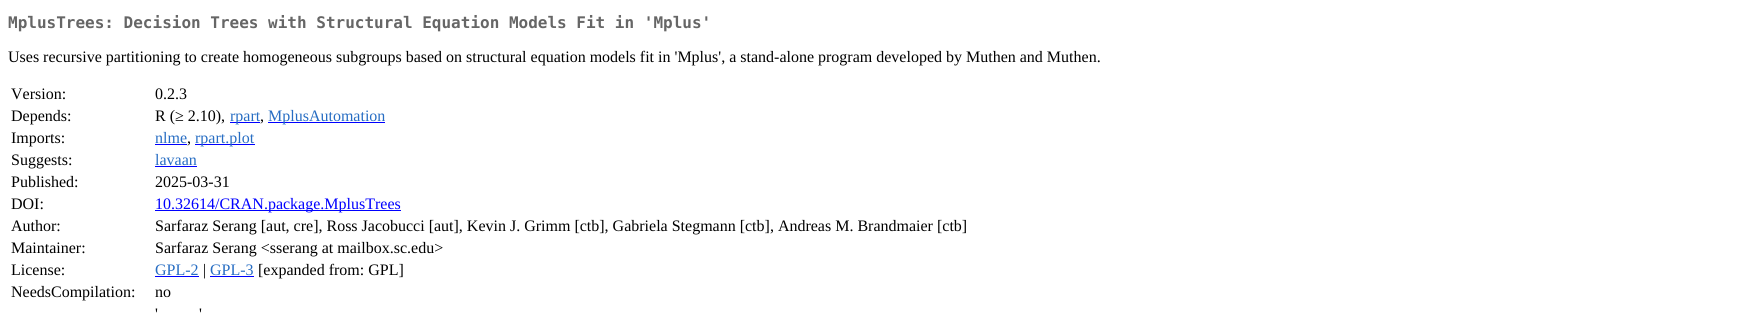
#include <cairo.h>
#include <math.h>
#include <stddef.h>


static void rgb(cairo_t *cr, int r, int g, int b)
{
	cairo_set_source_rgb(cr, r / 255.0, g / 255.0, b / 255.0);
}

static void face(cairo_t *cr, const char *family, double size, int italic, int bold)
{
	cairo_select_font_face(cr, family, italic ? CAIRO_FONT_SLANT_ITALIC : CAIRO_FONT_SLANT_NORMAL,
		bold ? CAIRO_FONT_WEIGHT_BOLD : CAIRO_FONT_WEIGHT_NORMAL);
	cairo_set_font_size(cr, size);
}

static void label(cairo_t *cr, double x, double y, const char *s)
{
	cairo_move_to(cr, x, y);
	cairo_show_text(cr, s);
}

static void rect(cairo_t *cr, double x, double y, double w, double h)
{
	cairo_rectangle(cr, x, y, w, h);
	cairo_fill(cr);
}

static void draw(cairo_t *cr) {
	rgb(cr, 255, 255, 255);
	cairo_paint(cr);
	face(cr, "DejaVu Sans Mono", 16, 0, 1);
	rgb(cr, 102, 102, 102);
	label(cr, 8, 28, "MplusTrees: Decision Trees with Structural Equation Models Fit in 'Mplus'");
	face(cr, "Liberation Serif", 16, 0, 0);
	rgb(cr, 0, 0, 0);
	label(cr, 8, 62, "Uses recursive partitioning to create homogeneous subgroups based on structural equation models fit in 'Mplus', a stand-alone program developed by Muthen and Muthen.");
	label(cr, 11, 99, "Version:");
	label(cr, 155, 99, "0.2.3");
	label(cr, 11, 121, "Depends:");
	label(cr, 155, 121, "R (≥ 2.10),");
	rgb(cr, 0, 0, 255);
	rect(cr, 230, 122, 30, 1);
	rgb(cr, 39, 109, 195);
	label(cr, 230, 121, "rpart");
	rgb(cr, 0, 0, 0);
	label(cr, 260, 121, ",");
	rgb(cr, 0, 0, 255);
	rect(cr, 268, 122, 117, 1);
	rgb(cr, 39, 109, 195);
	label(cr, 268, 121, "MplusAutomation");
	rgb(cr, 0, 0, 0);
	label(cr, 11, 143, "Imports:");
	rgb(cr, 39, 109, 195);
	label(cr, 155, 143, "nlme");
	rgb(cr, 0, 0, 255);
	rect(cr, 155, 144, 32, 1);
	rgb(cr, 0, 0, 0);
	label(cr, 187, 143, ",");
	rgb(cr, 0, 0, 255);
	rect(cr, 195, 144, 60, 1);
	rgb(cr, 39, 109, 195);
	label(cr, 195, 143, "rpart.plot");
	rgb(cr, 0, 0, 0);
	label(cr, 11, 165, "Suggests:");
	rgb(cr, 39, 109, 195);
	label(cr, 155, 165, "lavaan");
	rgb(cr, 0, 0, 255);
	rect(cr, 155, 166, 42, 1);
	rgb(cr, 0, 0, 0);
	label(cr, 11, 187, "Published:");
	label(cr, 155, 187, "2025-03-31");
	label(cr, 11, 209, "DOI:");
	rgb(cr, 0, 0, 255);
	rect(cr, 155, 210, 246, 1);
	label(cr, 155, 209, "10.32614/CRAN.package.MplusTrees");
	rgb(cr, 0, 0, 0);
	label(cr, 11, 231, "Author:");
	label(cr, 155, 231, "Sarfaraz Serang [aut, cre], Ross Jacobucci [aut], Kevin J. Grimm [ctb], Gabriela Stegmann [ctb], Andreas M. Brandmaier [ctb]");
	label(cr, 11, 253, "Maintainer:");
	label(cr, 155, 253, "Sarfaraz Serang <sserang at mailbox.sc.edu>");
	label(cr, 11, 275, "License:");
	rgb(cr, 39, 109, 195);
	label(cr, 155, 275, "GPL-2");
	rgb(cr, 0, 0, 255);
	rect(cr, 155, 276, 44, 1);
	rgb(cr, 0, 0, 0);
	label(cr, 203, 275, "|");
	rgb(cr, 39, 109, 195);
	label(cr, 210, 275, "GPL-3");
	rgb(cr, 0, 0, 255);
	rect(cr, 210, 276, 44, 1);
	rgb(cr, 0, 0, 0);
	label(cr, 258, 275, "[expanded from: GPL]");
	label(cr, 11, 297, "NeedsCompilation:");
	label(cr, 155, 297, "no");
	label(cr, 155, 319, "'");
	label(cr, 199, 319, "'");
}

int main(void) {
	cairo_surface_t *surface = cairo_image_surface_create(CAIRO_FORMAT_RGB24, 1759, 314);
	cairo_t *cr = cairo_create(surface);
	cairo_font_options_t *options = cairo_font_options_create();
	cairo_font_options_set_hint_metrics(options, CAIRO_HINT_METRICS_OFF);
	cairo_font_options_set_hint_style(options, CAIRO_HINT_STYLE_NONE);
	cairo_set_font_options(cr, options);
	cairo_set_miter_limit(cr, 4);
	draw(cr);
	cairo_surface_write_to_png(surface, "render.png");
	cairo_font_options_destroy(options);
	cairo_destroy(cr);
	cairo_surface_destroy(surface);
	return 0;
}
